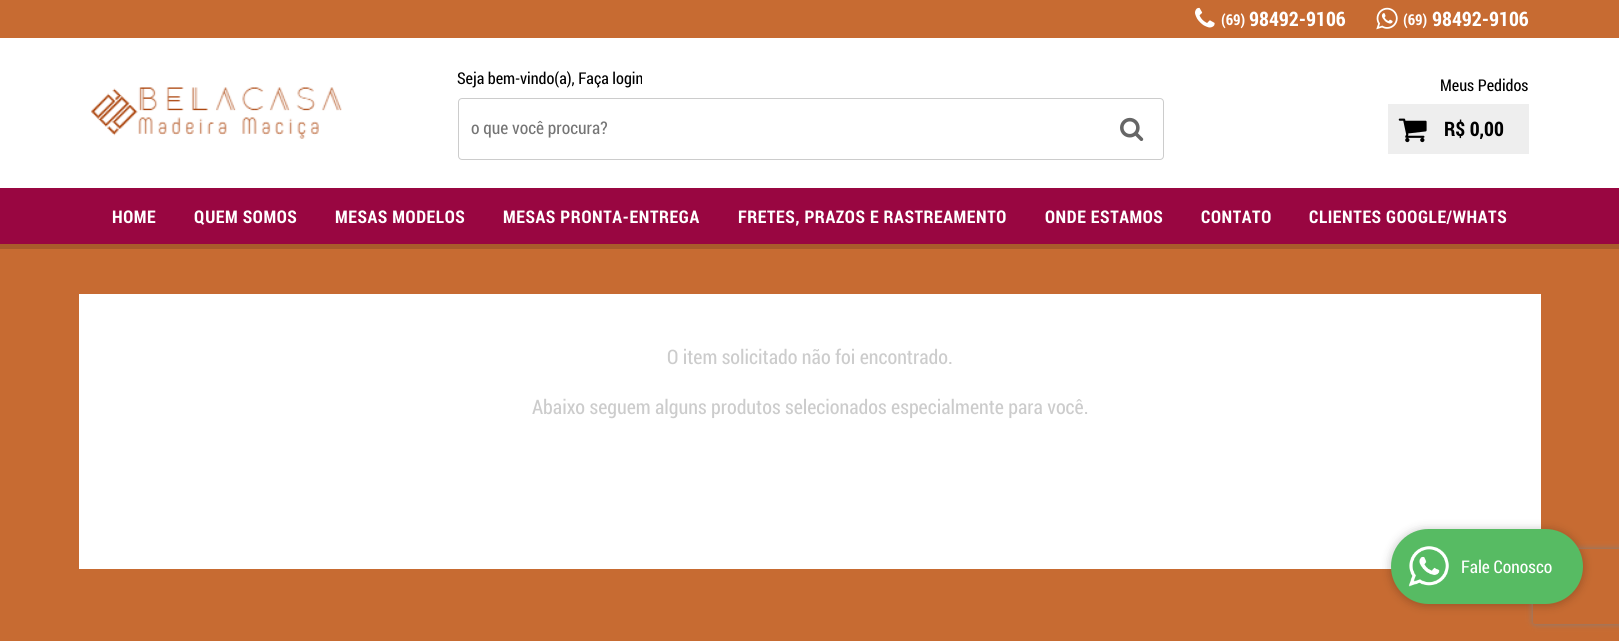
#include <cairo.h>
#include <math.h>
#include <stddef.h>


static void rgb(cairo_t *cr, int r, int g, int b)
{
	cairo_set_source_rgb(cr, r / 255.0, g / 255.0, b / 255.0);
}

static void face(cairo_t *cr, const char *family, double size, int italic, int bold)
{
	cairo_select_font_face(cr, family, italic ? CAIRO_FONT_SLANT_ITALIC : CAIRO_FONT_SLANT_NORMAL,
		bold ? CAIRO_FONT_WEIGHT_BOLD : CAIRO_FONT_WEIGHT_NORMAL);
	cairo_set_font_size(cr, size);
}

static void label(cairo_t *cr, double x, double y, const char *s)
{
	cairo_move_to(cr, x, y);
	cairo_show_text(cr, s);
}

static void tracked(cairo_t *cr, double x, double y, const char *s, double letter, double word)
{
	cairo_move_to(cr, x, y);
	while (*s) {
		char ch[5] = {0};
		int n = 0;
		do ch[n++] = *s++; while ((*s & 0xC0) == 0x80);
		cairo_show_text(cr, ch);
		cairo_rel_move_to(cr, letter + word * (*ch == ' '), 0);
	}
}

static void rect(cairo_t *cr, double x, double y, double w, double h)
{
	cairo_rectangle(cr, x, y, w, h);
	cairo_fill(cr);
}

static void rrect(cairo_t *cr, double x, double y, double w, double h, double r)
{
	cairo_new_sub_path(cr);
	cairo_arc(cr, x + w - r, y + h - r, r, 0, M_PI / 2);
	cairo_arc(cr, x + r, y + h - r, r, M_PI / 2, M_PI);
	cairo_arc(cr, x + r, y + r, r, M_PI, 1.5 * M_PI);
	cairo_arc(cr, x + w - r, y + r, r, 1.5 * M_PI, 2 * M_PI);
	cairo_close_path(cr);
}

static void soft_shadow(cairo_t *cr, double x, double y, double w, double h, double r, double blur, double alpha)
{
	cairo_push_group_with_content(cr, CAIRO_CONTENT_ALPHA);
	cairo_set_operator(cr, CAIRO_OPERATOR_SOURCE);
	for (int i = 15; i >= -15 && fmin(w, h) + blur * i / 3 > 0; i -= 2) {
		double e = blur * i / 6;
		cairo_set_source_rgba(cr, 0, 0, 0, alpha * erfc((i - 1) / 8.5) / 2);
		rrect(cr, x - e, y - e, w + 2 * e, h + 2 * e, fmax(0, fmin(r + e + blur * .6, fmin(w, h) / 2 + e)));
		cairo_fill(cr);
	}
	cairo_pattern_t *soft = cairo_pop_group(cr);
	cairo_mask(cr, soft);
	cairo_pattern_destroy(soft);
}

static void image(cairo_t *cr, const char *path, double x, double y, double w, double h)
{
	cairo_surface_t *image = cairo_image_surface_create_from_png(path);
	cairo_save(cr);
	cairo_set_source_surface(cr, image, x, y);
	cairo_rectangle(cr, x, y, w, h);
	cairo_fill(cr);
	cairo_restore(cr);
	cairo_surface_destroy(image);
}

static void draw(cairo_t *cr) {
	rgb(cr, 199, 107, 50);
	cairo_paint(cr);
	rgb(cr, 255, 255, 255);
	rect(cr, 0, 38, 1619, 150);
	image(cr, "image0.png", 1195, 7, 20, 21);
	face(cr, "Roboto Condensed", 15, 0, 1);
	label(cr, 1221, 25, "(69)");
	face(cr, "Roboto Condensed", 20, 0, 1);
	label(cr, 1249, 26, "98492-9106");
	image(cr, "image1.png", 1376, 7, 22, 23);
	face(cr, "Roboto Condensed", 15, 0, 1);
	label(cr, 1403, 25, "(69)");
	face(cr, "Roboto Condensed", 20, 0, 1);
	label(cr, 1432, 26, "98492-9106");
	image(cr, "image2.png", 91, 87, 251, 52);
	face(cr, "Roboto Condensed", 16.25, 0, 0);
	rgb(cr, 0, 0, 0);
	label(cr, 457, 84, "Seja bem-vindo(a), Faça login");
	rrect(cr, 458.5, 98.5, 705, 61, 3.5);
	rgb(cr, 204, 204, 204);
	cairo_set_line_width(cr, 1);
	cairo_stroke(cr);
	face(cr, "Roboto Condensed", 17.5, 0, 0);
	rgb(cr, 117, 117, 117);
	label(cr, 471, 134, "o que você procura?");
	image(cr, "image3.png", 1120, 117, 24, 24);
	face(cr, "Roboto Condensed", 16.25, 0, 0);
	rgb(cr, 0, 0, 0);
	label(cr, 1440, 91, "Meus Pedidos");
	rgb(cr, 238, 238, 238);
	rect(cr, 1388, 104, 141, 50);
	image(cr, "image4.png", 1398, 118, 29, 25);
	face(cr, "Roboto Condensed", 20, 0, 1);
	rgb(cr, 0, 0, 0);
	label(cr, 1444, 136, "R$ 0,00");
	rgb(cr, 169, 91, 43);
	rect(cr, 0, 244, 1619, 5);
	rgb(cr, 153, 6, 65);
	rect(cr, 0, 188, 1619, 56);
	face(cr, "Roboto Condensed", 17.5, 0, 1);
	rgb(cr, 255, 255, 255);
	tracked(cr, 112, 223, "HOME", 0.6, 0);
	tracked(cr, 194, 223, "QUEM SOMOS", 0.6, 0);
	tracked(cr, 335, 223, "MESAS MODELOS", 0.6, 0);
	tracked(cr, 503, 223, "MESAS PRONTA-ENTREGA", 0.6, 0);
	tracked(cr, 738, 223, "FRETES, PRAZOS E RASTREAMENTO", 0.6, 0);
	tracked(cr, 1045, 223, "ONDE ESTAMOS", 0.6, 0);
	tracked(cr, 1201, 223, "CONTATO", 0.6, 0);
	tracked(cr, 1309, 223, "CLIENTES GOOGLE/WHATS", 0.6, 0);
	rect(cr, 79, 294, 1462, 275);
	face(cr, "Roboto Condensed", 20, 0, 0);
	rgb(cr, 204, 204, 204);
	label(cr, 667, 364, "O item solicitado não foi encontrado.");
	label(cr, 532, 414, "Abaixo seguem alguns produtos selecionados especialmente para você.");
	rgb(cr, 0, 0, 0);
	soft_shadow(cr, 1391, 530, 192, 75, 37.5, 5, 0.25);
	cairo_save(cr);
	cairo_set_fill_rule(cr, CAIRO_FILL_RULE_EVEN_ODD);
	cairo_new_path(cr);
	cairo_move_to(cr, 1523, 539);
	cairo_line_to(cr, 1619, 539);
	cairo_line_to(cr, 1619, 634);
	cairo_line_to(cr, 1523, 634);
	cairo_close_path(cr);
	cairo_move_to(cr, 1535.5, 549);
	cairo_line_to(cr, 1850.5, 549);
	cairo_curve_to(cr, 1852, 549, 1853, 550, 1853, 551.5);
	cairo_line_to(cr, 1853, 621.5);
	cairo_curve_to(cr, 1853, 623, 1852, 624, 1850.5, 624);
	cairo_line_to(cr, 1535.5, 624);
	cairo_curve_to(cr, 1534, 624, 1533, 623, 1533, 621.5);
	cairo_line_to(cr, 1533, 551.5);
	cairo_curve_to(cr, 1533, 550, 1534, 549, 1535.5, 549);
	cairo_close_path(cr);
	cairo_clip(cr);
	rgb(cr, 128, 128, 128);
	soft_shadow(cr, 1533, 549, 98, 75, 2.5, 3, 1);
	cairo_restore(cr);
	rgb(cr, 87, 187, 99);
	rrect(cr, 1391, 529, 192, 75, 37.5);
	cairo_fill(cr);
	image(cr, "image5.png", 1408, 546, 41, 41);
	face(cr, "Roboto Condensed", 17.5, 0, 0);
	rgb(cr, 255, 255, 255);
	label(cr, 1461, 573, "Fale Conosco");
}

int main(void) {
	cairo_surface_t *surface = cairo_image_surface_create(CAIRO_FORMAT_RGB24, 1619, 641);
	cairo_t *cr = cairo_create(surface);
	cairo_font_options_t *options = cairo_font_options_create();
	cairo_font_options_set_hint_metrics(options, CAIRO_HINT_METRICS_OFF);
	cairo_font_options_set_hint_style(options, CAIRO_HINT_STYLE_NONE);
	cairo_set_font_options(cr, options);
	cairo_set_miter_limit(cr, 4);
	draw(cr);
	cairo_surface_write_to_png(surface, "render.png");
	cairo_font_options_destroy(options);
	cairo_destroy(cr);
	cairo_surface_destroy(surface);
	return 0;
}
